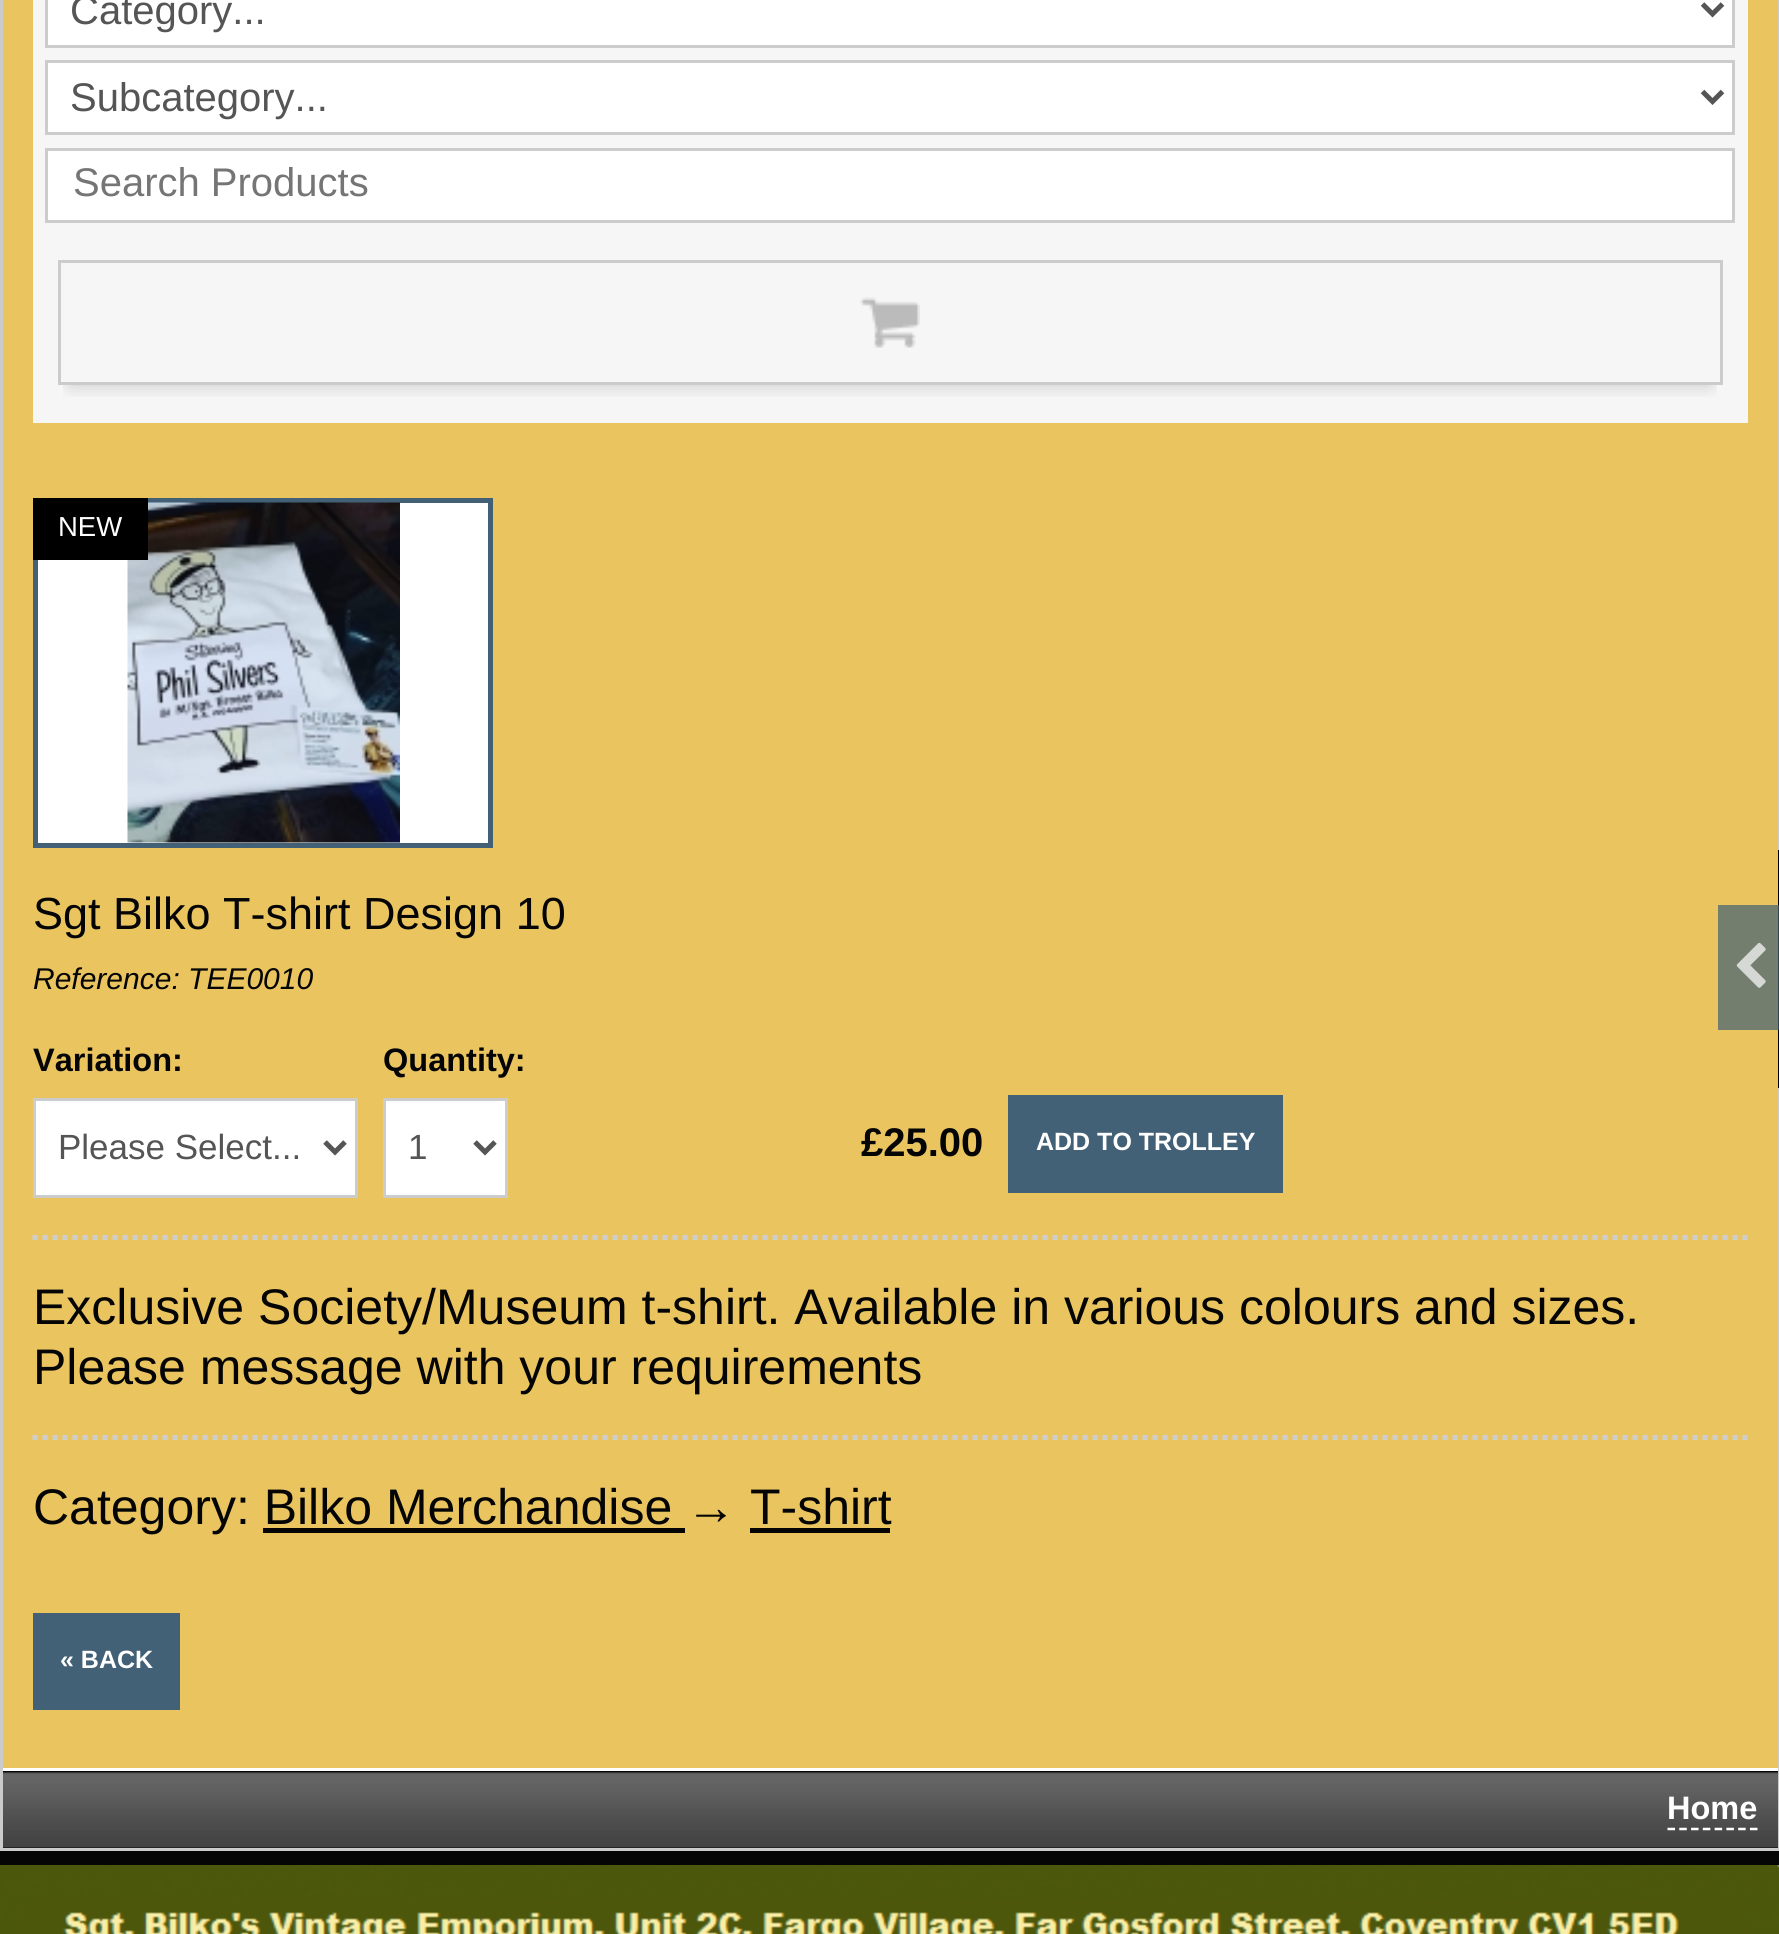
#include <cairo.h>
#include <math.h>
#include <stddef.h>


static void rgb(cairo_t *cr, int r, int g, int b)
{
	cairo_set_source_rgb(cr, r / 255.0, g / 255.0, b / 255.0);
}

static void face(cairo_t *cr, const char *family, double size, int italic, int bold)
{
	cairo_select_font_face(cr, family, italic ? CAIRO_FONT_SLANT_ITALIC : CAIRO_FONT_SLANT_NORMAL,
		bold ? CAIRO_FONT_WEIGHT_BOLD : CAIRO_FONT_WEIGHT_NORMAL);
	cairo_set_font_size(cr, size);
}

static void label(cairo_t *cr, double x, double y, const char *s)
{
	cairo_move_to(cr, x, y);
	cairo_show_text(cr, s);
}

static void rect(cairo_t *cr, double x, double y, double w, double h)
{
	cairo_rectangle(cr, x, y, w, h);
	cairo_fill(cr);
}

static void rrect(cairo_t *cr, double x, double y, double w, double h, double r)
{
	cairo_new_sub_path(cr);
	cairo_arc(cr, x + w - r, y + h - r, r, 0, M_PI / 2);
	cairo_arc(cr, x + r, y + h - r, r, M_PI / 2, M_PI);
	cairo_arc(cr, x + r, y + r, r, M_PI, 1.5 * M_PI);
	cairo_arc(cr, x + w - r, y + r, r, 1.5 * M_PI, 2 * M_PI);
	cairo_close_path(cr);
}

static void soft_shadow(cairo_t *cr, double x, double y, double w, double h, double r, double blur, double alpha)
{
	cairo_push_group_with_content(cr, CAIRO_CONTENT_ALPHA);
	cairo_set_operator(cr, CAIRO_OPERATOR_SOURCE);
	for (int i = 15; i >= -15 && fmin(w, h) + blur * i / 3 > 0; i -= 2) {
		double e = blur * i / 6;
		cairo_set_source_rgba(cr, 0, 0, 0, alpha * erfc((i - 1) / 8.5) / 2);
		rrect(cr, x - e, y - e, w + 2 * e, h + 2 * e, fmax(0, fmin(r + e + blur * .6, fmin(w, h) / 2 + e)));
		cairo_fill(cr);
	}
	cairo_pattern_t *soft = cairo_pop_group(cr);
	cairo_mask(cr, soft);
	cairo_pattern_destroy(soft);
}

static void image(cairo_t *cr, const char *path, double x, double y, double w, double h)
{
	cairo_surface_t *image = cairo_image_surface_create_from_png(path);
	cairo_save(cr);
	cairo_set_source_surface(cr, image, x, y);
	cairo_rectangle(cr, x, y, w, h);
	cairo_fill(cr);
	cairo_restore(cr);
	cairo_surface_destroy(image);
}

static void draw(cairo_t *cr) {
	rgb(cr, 5, 5, 5);
	cairo_paint(cr);
	rgb(cr, 233, 196, 95);
	rect(cr, 3, 0, 1775, 1768);
	rgb(cr, 116, 126, 111);
	rect(cr, 1718, 905, 60, 125);
	rgb(cr, 246, 246, 246);
	rect(cr, 33, 0, 1715, 423);
	rgb(cr, 255, 255, 255);
	cairo_rectangle(cr, 46.5, -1.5, 1687, 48);
	cairo_fill_preserve(cr);
	rgb(cr, 204, 204, 204);
	cairo_set_line_width(cr, 3);
	cairo_stroke(cr);
	cairo_new_path(cr);
	cairo_move_to(cr, 1702.5, 4);
	cairo_line_to(cr, 1712.5, 14);
	cairo_line_to(cr, 1722.5, 4);
	rgb(cr, 85, 85, 85);
	cairo_set_line_width(cr, 5);
	cairo_stroke(cr);
	face(cr, "Liberation Sans", 40, 0, 0);
	label(cr, 70, 24, "Category...");
	rgb(cr, 255, 255, 255);
	cairo_rectangle(cr, 46.5, 61.5, 1687, 72);
	cairo_fill_preserve(cr);
	rgb(cr, 204, 204, 204);
	cairo_set_line_width(cr, 3);
	cairo_stroke(cr);
	cairo_new_path(cr);
	cairo_move_to(cr, 1702.5, 91.5);
	cairo_line_to(cr, 1712.5, 101.5);
	cairo_line_to(cr, 1722.5, 91.5);
	rgb(cr, 85, 85, 85);
	cairo_set_line_width(cr, 5);
	cairo_stroke(cr);
	label(cr, 70, 111, "Subcategory...");
	rgb(cr, 255, 255, 255);
	cairo_rectangle(cr, 46.5, 149.5, 1687, 72);
	cairo_fill_preserve(cr);
	rgb(cr, 204, 204, 204);
	cairo_set_line_width(cr, 3);
	cairo_stroke(cr);
	rgb(cr, 117, 117, 117);
	label(cr, 73, 196, "Search Products");
	cairo_save(cr);
	cairo_rectangle(cr, 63, 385, 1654, 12);
	cairo_clip(cr);
	rgb(cr, 0, 0, 0);
	soft_shadow(cr, 70, 285, 1640, 100, 0, 9, 0.2);
	cairo_restore(cr);
	cairo_rectangle(cr, 59.5, 261.5, 1662, 122);
	rgb(cr, 204, 204, 204);
	cairo_stroke(cr);
	image(cr, "image0.png", 860, 297, 60, 51);
	rgb(cr, 255, 255, 255);
	cairo_rectangle(cr, 35.5, 500.5, 455, 345);
	cairo_fill_preserve(cr);
	rgb(cr, 66, 96, 118);
	cairo_set_line_width(cr, 5);
	cairo_stroke(cr);
	image(cr, "image1.png", 127, 502, 273, 341);
	rgb(cr, 0, 0, 0);
	rect(cr, 33, 498, 115, 62);
	face(cr, "Liberation Sans", 27.5, 0, 0);
	rgb(cr, 255, 255, 255);
	label(cr, 58, 536, "NEW");
	face(cr, "Liberation Sans", 45, 0, 0);
	rgb(cr, 5, 5, 5);
	label(cr, 33, 929, "Sgt Bilko T-shirt Design 10");
	face(cr, "Liberation Sans", 30, 1, 0);
	label(cr, 33, 989, "Reference: TEE0010");
	face(cr, "Liberation Sans", 32.5, 0, 1);
	label(cr, 33, 1071, "Variation:");
	rgb(cr, 255, 255, 255);
	cairo_rectangle(cr, 34.5, 1099.5, 322, 97);
	cairo_fill_preserve(cr);
	rgb(cr, 204, 204, 204);
	cairo_set_line_width(cr, 3);
	cairo_stroke(cr);
	cairo_new_path(cr);
	cairo_move_to(cr, 325, 1142);
	cairo_line_to(cr, 335, 1152);
	cairo_line_to(cr, 345, 1142);
	rgb(cr, 85, 85, 85);
	cairo_set_line_width(cr, 5);
	cairo_stroke(cr);
	face(cr, "Liberation Sans", 35, 0, 0);
	label(cr, 58, 1159, "Please Select...");
	face(cr, "Liberation Sans", 32.5, 0, 1);
	rgb(cr, 5, 5, 5);
	label(cr, 383, 1071, "Quantity:");
	rgb(cr, 255, 255, 255);
	cairo_rectangle(cr, 384.5, 1099.5, 122, 97);
	cairo_fill_preserve(cr);
	rgb(cr, 204, 204, 204);
	cairo_set_line_width(cr, 3);
	cairo_stroke(cr);
	cairo_new_path(cr);
	cairo_move_to(cr, 475, 1142);
	cairo_line_to(cr, 485, 1152);
	cairo_line_to(cr, 495, 1142);
	rgb(cr, 85, 85, 85);
	cairo_set_line_width(cr, 5);
	cairo_stroke(cr);
	face(cr, "Liberation Sans", 35, 0, 0);
	label(cr, 408, 1159, "1");
	face(cr, "Liberation Sans", 40, 0, 1);
	rgb(cr, 5, 5, 5);
	label(cr, 861, 1156, "£25.00");
	rgb(cr, 66, 96, 118);
	rect(cr, 1008, 1095, 275, 98);
	face(cr, "Liberation Sans", 25, 0, 1);
	rgb(cr, 255, 255, 255);
	label(cr, 1036, 1150, "ADD TO TROLLEY");
	cairo_new_path(cr);
	cairo_move_to(cr, 32.5, 1237.5);
	cairo_line_to(cr, 1747.5, 1237.5);
	rgb(cr, 206, 206, 206);
	cairo_set_dash(cr, (double[]){5, 5}, 2, 0);
	cairo_stroke(cr);
	face(cr, "Liberation Sans", 50, 0, 0);
	rgb(cr, 5, 5, 5);
	label(cr, 33, 1324, "Exclusive Society/Museum t-shirt. Available in various colours and sizes.");
	label(cr, 33, 1384, "Please message with your requirements");
	cairo_new_path(cr);
	cairo_move_to(cr, 32.5, 1437.5);
	cairo_line_to(cr, 1747.5, 1437.5);
	rgb(cr, 206, 206, 206);
	cairo_stroke(cr);
	rgb(cr, 5, 5, 5);
	label(cr, 33, 1524, "Category: Bilko Merchandise → T-shirt");
	rect(cr, 263, 1528, 422, 5);
	rect(cr, 750, 1528, 140, 5);
	rgb(cr, 66, 96, 118);
	rect(cr, 33, 1613, 147, 97);
	face(cr, "Liberation Sans", 25, 0, 1);
	rgb(cr, 255, 255, 255);
	label(cr, 60, 1668, "« BACK");
	rect(cr, 0, 1768, 1779, 3);
	rgb(cr, 203, 203, 203);
	rect(cr, 1778, 0, 1, 1850);
	rgb(cr, 0, 0, 0);
	rect(cr, 1778, 850, 1, 238);
	rgb(cr, 46, 67, 83);
	rect(cr, 1778, 905, 1, 125);
	image(cr, "image2.png", 1736, 942, 30, 46);
	image(cr, "image3.png", 3, 1771, 1775, 77);
	rgb(cr, 203, 203, 203);
	rect(cr, 0, 1848, 1779, 3);
	rect(cr, 0, 0, 3, 1850);
	face(cr, "Liberation Sans", 32.5, 0, 1);
	rgb(cr, 255, 255, 255);
	label(cr, 1667, 1819, "Home");
	cairo_new_path(cr);
	cairo_move_to(cr, 1667.5, 1829);
	cairo_line_to(cr, 1757.5, 1829);
	cairo_set_line_width(cr, 2.5);
	cairo_set_dash(cr, (double[]){7.5, 4.28}, 2, 0);
	cairo_stroke(cr);
	image(cr, "image4.png", 0, 1865, 1779, 69);
}

int main(void) {
	cairo_surface_t *surface = cairo_image_surface_create(CAIRO_FORMAT_RGB24, 1779, 1934);
	cairo_t *cr = cairo_create(surface);
	cairo_font_options_t *options = cairo_font_options_create();
	cairo_font_options_set_hint_metrics(options, CAIRO_HINT_METRICS_OFF);
	cairo_font_options_set_hint_style(options, CAIRO_HINT_STYLE_NONE);
	cairo_set_font_options(cr, options);
	cairo_set_miter_limit(cr, 4);
	draw(cr);
	cairo_surface_write_to_png(surface, "render.png");
	cairo_font_options_destroy(options);
	cairo_destroy(cr);
	cairo_surface_destroy(surface);
	return 0;
}
